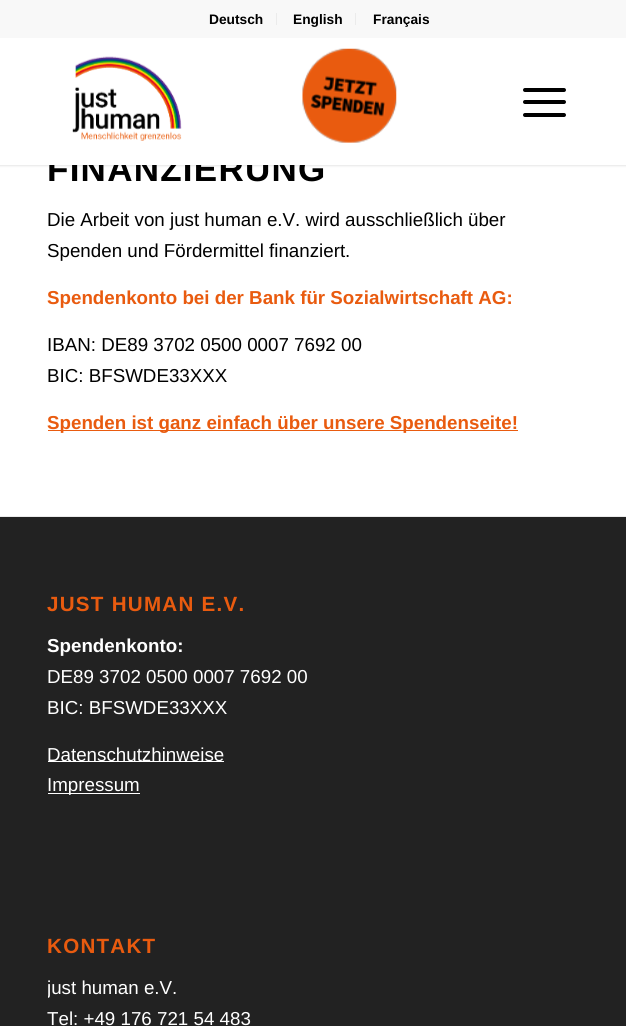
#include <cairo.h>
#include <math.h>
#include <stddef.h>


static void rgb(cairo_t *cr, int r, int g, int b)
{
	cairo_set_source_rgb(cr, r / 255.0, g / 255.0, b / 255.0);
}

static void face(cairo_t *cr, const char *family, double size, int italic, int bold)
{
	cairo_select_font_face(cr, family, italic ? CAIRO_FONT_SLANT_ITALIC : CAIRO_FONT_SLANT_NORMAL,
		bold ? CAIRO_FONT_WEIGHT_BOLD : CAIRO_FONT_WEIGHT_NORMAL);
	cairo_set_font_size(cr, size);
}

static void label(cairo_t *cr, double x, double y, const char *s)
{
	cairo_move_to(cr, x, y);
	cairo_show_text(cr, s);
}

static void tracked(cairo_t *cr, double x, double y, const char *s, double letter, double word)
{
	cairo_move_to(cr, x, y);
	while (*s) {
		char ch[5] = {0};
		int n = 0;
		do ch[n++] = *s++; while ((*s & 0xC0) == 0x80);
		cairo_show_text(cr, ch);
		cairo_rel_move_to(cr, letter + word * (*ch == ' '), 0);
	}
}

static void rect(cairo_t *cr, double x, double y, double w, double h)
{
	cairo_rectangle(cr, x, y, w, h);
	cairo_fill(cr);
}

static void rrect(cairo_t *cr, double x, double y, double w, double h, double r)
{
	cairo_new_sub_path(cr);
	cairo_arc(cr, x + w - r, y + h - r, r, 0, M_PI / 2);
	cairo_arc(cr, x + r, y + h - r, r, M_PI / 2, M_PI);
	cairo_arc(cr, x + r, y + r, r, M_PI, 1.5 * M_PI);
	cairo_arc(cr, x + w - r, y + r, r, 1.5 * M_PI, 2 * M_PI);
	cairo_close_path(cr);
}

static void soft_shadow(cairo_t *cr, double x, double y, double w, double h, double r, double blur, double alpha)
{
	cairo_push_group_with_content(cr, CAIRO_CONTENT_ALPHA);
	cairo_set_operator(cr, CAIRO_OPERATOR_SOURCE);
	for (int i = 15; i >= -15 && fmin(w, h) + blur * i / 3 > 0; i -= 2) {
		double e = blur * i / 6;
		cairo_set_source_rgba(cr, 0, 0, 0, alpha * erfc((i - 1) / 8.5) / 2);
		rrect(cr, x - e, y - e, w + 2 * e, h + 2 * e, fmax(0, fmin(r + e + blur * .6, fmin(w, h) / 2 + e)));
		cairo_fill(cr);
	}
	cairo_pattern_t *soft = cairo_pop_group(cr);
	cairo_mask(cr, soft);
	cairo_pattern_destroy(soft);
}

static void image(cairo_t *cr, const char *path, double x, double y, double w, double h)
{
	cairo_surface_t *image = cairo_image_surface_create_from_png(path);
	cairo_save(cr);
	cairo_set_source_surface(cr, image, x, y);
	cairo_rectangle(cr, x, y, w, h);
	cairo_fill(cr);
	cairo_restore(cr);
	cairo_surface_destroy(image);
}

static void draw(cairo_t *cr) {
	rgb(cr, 255, 255, 255);
	cairo_paint(cr);
	rgb(cr, 0, 0, 0);
	soft_shadow(cr, -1, -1, 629, 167, 0, 1, 0.1);
	rgb(cr, 248, 248, 248);
	rect(cr, 0, 0, 626, 38);
	rgb(cr, 235, 235, 235);
	rect(cr, 276, 13, 1, 12);
	face(cr, "Liberation Sans", 13.75, 0, 1);
	rgb(cr, 0, 0, 0);
	label(cr, 209, 24, "Deutsch");
	rgb(cr, 235, 235, 235);
	rect(cr, 355, 13, 1, 12);
	rgb(cr, 0, 0, 0);
	label(cr, 293, 24, "English");
	label(cr, 373, 24, "Français");
	face(cr, "Liberation Sans", 35, 0, 1);
	tracked(cr, 47, 181, "FINANZIERUNG", 1.25, 0);
	rgb(cr, 255, 255, 255);
	rect(cr, 0, 38, 626, 127);
	image(cr, "image0.png", 72, 56, 110, 85);
	image(cr, "image1.png", 302, 48, 95, 95);
	rgb(cr, 0, 0, 0);
	rrect(cr, 523, 100, 43, 4, 2);
	cairo_fill(cr);
	rrect(cr, 523, 88, 43, 4, 2);
	cairo_fill(cr);
	rrect(cr, 523, 113, 43, 4, 2);
	cairo_fill(cr);
	face(cr, "Liberation Sans", 18.75, 0, 0);
	label(cr, 47, 226, "Die Arbeit von just human e.V. wird ausschließlich über");
	label(cr, 47, 257, "Spenden und Fördermittel finanziert.");
	face(cr, "Liberation Sans", 18.75, 0, 1);
	rgb(cr, 233, 91, 15);
	label(cr, 47, 304, "Spendenkonto bei der Bank für Sozialwirtschaft AG:");
	face(cr, "Liberation Sans", 18.75, 0, 0);
	rgb(cr, 0, 0, 0);
	label(cr, 47, 351, "IBAN: DE89 3702 0500 0007 7692 00");
	label(cr, 47, 382, "BIC: BFSWDE33XXX");
	rgb(cr, 233, 91, 15);
	rect(cr, 48, 430, 470, 1);
	face(cr, "Liberation Sans", 18.75, 0, 1);
	label(cr, 47, 429, "Spenden ist ganz einfach über unsere Spendenseite!");
	rgb(cr, 34, 34, 34);
	rect(cr, 0, 517, 626, 509);
	rgb(cr, 235, 235, 235);
	rect(cr, 0, 516, 626, 1);
	face(cr, "Liberation Sans", 20.6, 0, 1);
	rgb(cr, 233, 91, 15);
	tracked(cr, 47, 611, "JUST HUMAN E.V.", 1.25, 0);
	face(cr, "Liberation Sans", 18.75, 0, 1);
	rgb(cr, 255, 255, 255);
	label(cr, 47, 652, "Spendenkonto:");
	face(cr, "Liberation Sans", 18.75, 0, 0);
	label(cr, 47, 683, "DE89 3702 0500 0007 7692 00");
	label(cr, 47, 714, "BIC: BFSWDE33XXX");
	rect(cr, 48, 761, 176, 1);
	label(cr, 47, 761, "Datenschutzhinweise");
	rect(cr, 48, 793, 92, 1);
	label(cr, 47, 791, "Impressum");
	face(cr, "Liberation Sans", 20.6, 0, 1);
	rgb(cr, 233, 91, 15);
	tracked(cr, 47, 953, "KONTAKT", 1.25, 0);
	cairo_save(cr);
	cairo_rectangle(cr, 48, 918, 531, 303);
	cairo_clip(cr);
	face(cr, "Liberation Sans", 18.75, 0, 0);
	rgb(cr, 255, 255, 255);
	label(cr, 47, 994, "just human e.V.");
	cairo_restore(cr);
	face(cr, "Liberation Sans", 18.75, 0, 0);
	rgb(cr, 255, 255, 255);
	label(cr, 47, 1025, "Tel: +49 176 721 54 483");
}

int main(void) {
	cairo_surface_t *surface = cairo_image_surface_create(CAIRO_FORMAT_RGB24, 626, 1026);
	cairo_t *cr = cairo_create(surface);
	cairo_font_options_t *options = cairo_font_options_create();
	cairo_font_options_set_hint_metrics(options, CAIRO_HINT_METRICS_OFF);
	cairo_font_options_set_hint_style(options, CAIRO_HINT_STYLE_NONE);
	cairo_set_font_options(cr, options);
	cairo_set_miter_limit(cr, 4);
	draw(cr);
	cairo_surface_write_to_png(surface, "render.png");
	cairo_font_options_destroy(options);
	cairo_destroy(cr);
	cairo_surface_destroy(surface);
	return 0;
}
